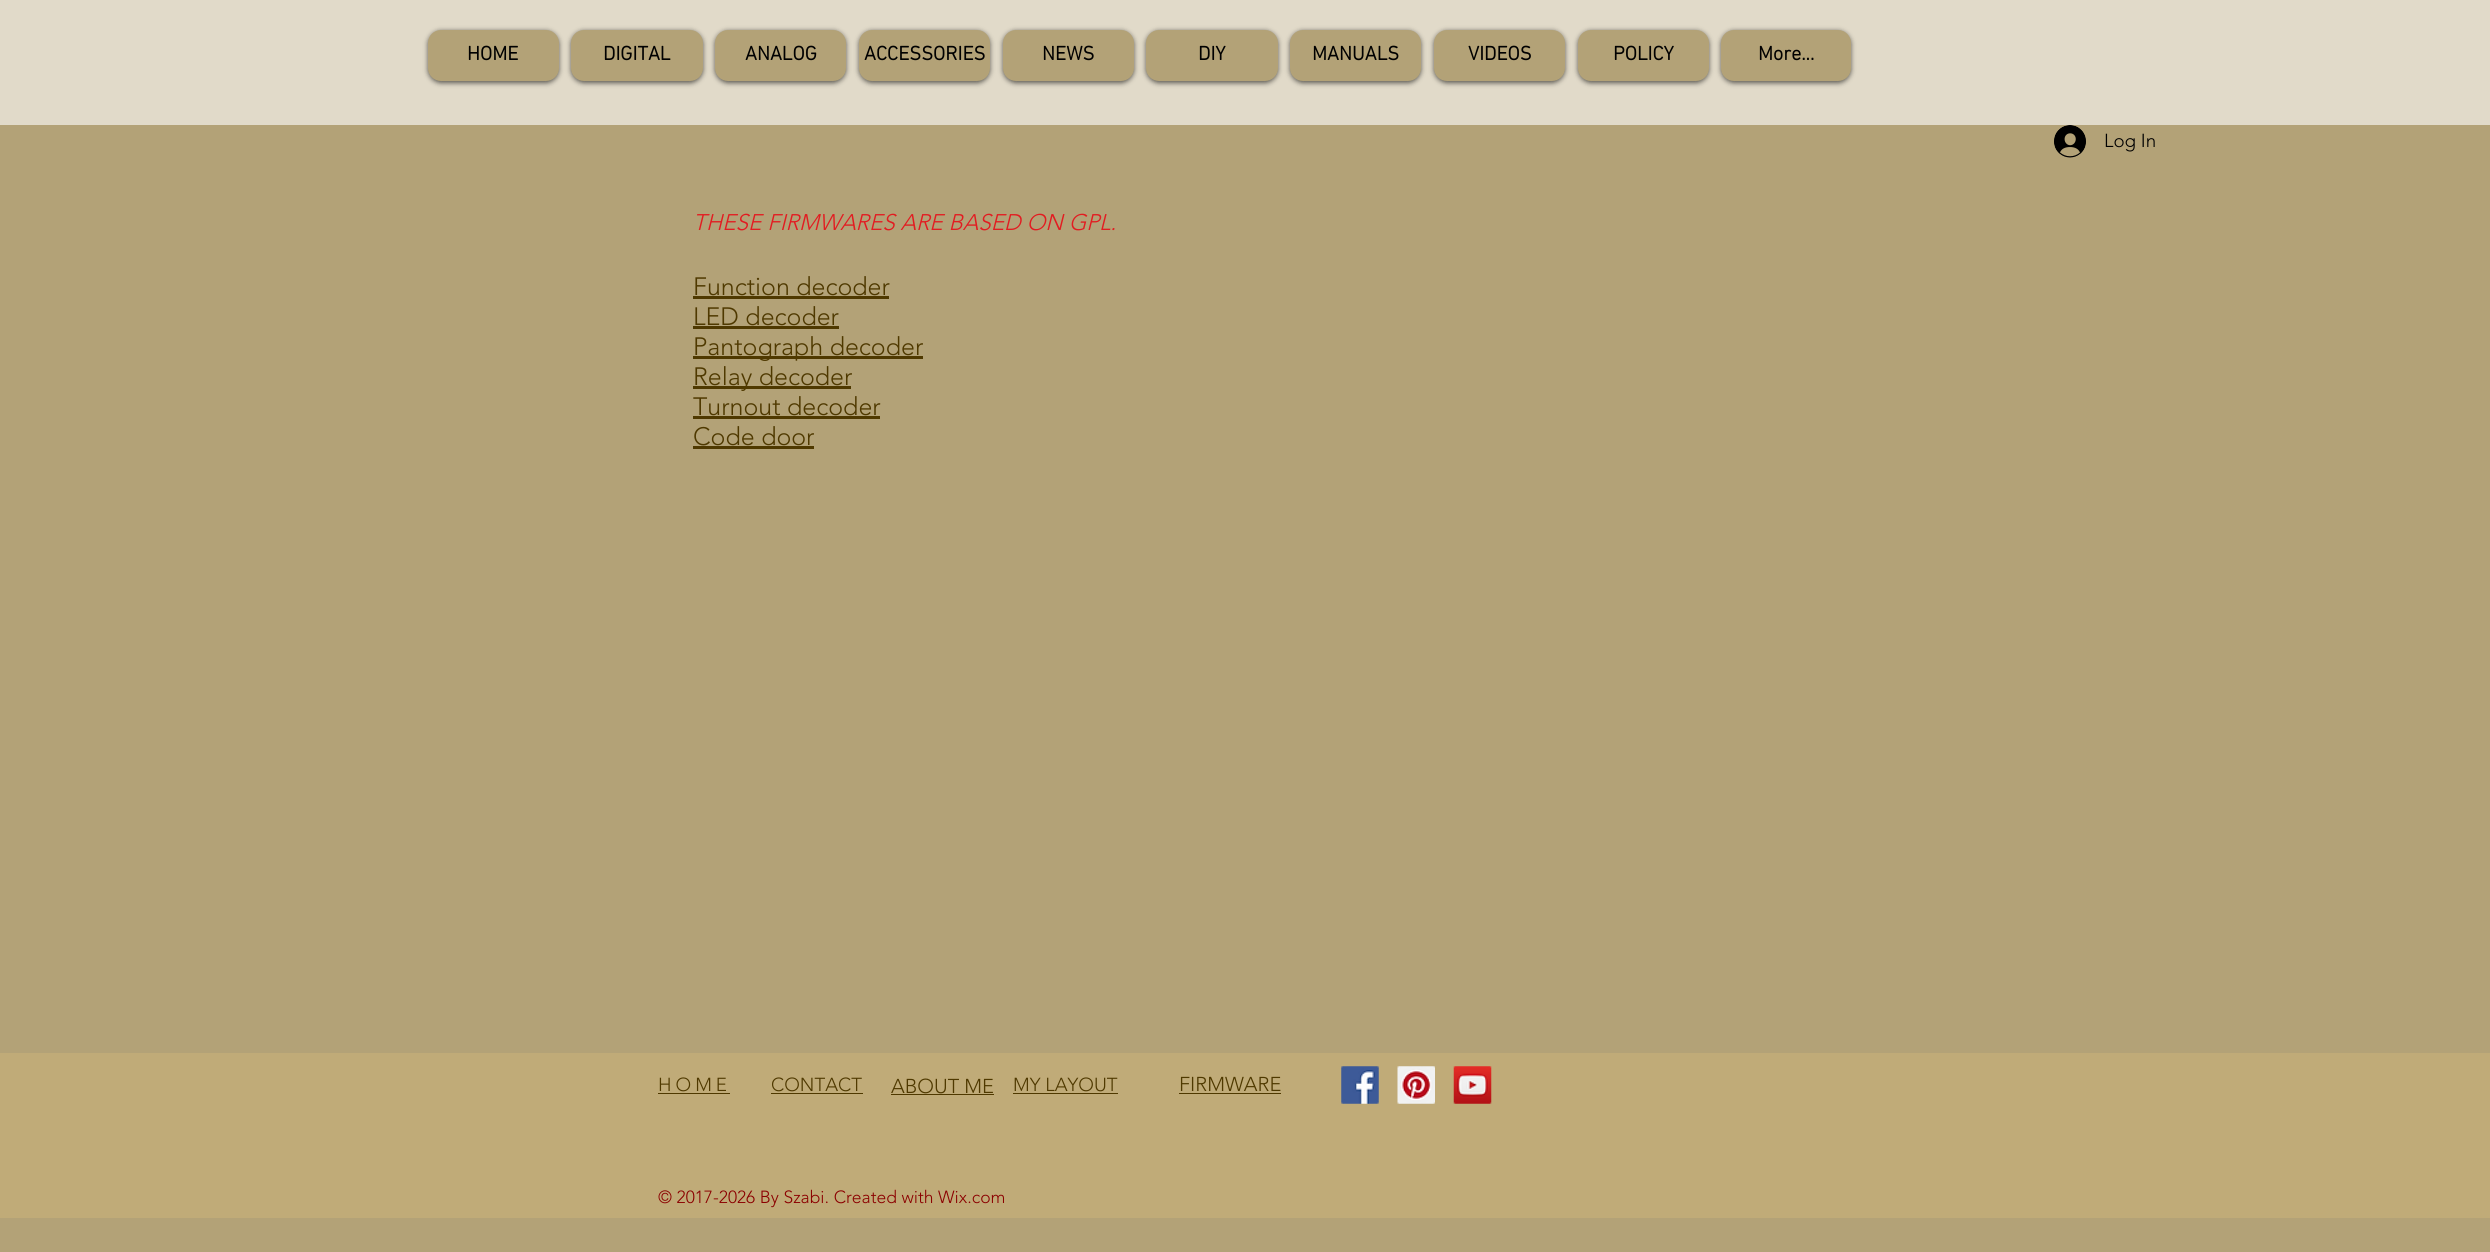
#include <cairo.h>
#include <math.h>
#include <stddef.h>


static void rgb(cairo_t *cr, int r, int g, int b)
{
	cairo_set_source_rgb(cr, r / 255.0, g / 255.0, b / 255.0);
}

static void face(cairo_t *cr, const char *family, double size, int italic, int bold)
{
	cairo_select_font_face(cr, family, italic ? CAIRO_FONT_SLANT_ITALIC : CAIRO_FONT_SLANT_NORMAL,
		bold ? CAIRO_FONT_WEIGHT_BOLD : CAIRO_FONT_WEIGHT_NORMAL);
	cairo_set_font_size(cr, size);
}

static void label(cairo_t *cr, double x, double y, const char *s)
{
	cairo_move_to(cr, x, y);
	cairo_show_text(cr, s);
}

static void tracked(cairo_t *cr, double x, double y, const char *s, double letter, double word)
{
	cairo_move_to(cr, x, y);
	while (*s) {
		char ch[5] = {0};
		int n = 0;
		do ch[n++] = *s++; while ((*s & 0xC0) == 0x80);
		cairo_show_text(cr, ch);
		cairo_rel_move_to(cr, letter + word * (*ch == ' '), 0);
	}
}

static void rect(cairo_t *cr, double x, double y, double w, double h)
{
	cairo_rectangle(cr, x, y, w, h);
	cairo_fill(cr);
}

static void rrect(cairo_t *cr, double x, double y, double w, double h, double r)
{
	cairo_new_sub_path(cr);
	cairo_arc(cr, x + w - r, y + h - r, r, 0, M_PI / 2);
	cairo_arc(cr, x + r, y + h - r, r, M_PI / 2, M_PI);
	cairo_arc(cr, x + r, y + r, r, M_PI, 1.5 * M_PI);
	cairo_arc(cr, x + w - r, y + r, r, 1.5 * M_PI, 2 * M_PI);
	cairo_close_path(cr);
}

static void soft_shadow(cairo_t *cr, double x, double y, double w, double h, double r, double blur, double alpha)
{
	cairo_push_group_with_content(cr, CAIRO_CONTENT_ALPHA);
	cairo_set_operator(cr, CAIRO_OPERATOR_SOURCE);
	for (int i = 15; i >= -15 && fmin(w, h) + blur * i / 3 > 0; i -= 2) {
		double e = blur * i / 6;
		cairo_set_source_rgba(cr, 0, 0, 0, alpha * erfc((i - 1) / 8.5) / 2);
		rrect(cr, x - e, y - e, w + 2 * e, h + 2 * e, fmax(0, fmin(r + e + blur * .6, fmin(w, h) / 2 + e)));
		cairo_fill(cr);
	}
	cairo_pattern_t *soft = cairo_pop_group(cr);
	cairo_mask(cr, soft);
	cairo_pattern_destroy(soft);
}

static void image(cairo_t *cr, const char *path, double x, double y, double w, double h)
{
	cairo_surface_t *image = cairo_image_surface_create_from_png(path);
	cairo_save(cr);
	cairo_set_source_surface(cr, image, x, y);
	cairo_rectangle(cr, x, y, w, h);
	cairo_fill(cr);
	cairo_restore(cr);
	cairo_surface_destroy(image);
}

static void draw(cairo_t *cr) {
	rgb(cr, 179, 162, 119);
	cairo_paint(cr);
	rgb(cr, 225, 218, 201);
	rect(cr, 0, 0, 2490, 125);
	rgb(cr, 0, 0, 0);
	soft_shadow(cr, 428, 31, 131, 52, 13, 2.5, 0.6);
	rgb(cr, 179, 162, 119);
	rrect(cr, 428, 30, 131, 51, 13);
	cairo_fill(cr);
	face(cr, "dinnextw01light", 20, 0, 1);
	rgb(cr, 0, 0, 0);
	label(cr, 467, 60, "HOME");
	rgb(cr, 0, 0, 0);
	soft_shadow(cr, 571, 31, 132, 52, 13, 2.5, 0.6);
	rgb(cr, 179, 162, 119);
	rrect(cr, 571, 30, 132, 51, 13);
	cairo_fill(cr);
	rgb(cr, 0, 0, 0);
	label(cr, 603, 60, "DIGITAL");
	rgb(cr, 0, 0, 0);
	soft_shadow(cr, 715, 31, 131, 52, 13, 2.5, 0.6);
	rgb(cr, 179, 162, 119);
	rrect(cr, 715, 30, 131, 51, 13);
	cairo_fill(cr);
	rgb(cr, 0, 0, 0);
	label(cr, 745, 60, "ANALOG");
	rgb(cr, 0, 0, 0);
	soft_shadow(cr, 859, 31, 131, 52, 13, 2.5, 0.6);
	rgb(cr, 179, 162, 119);
	rrect(cr, 859, 30, 131, 51, 13);
	cairo_fill(cr);
	rgb(cr, 0, 0, 0);
	label(cr, 864, 60, "ACCESSORIES");
	rgb(cr, 0, 0, 0);
	soft_shadow(cr, 1003, 31, 131, 52, 13, 2.5, 0.6);
	rgb(cr, 179, 162, 119);
	rrect(cr, 1003, 30, 131, 51, 13);
	cairo_fill(cr);
	rgb(cr, 0, 0, 0);
	label(cr, 1042, 60, "NEWS");
	rgb(cr, 0, 0, 0);
	soft_shadow(cr, 1146, 31, 132, 52, 13, 2.5, 0.6);
	rgb(cr, 179, 162, 119);
	rrect(cr, 1146, 30, 132, 51, 13);
	cairo_fill(cr);
	rgb(cr, 0, 0, 0);
	label(cr, 1198, 60, "DIY");
	rgb(cr, 0, 0, 0);
	soft_shadow(cr, 1290, 31, 131, 52, 13, 2.5, 0.6);
	rgb(cr, 179, 162, 119);
	rrect(cr, 1290, 30, 131, 51, 13);
	cairo_fill(cr);
	rgb(cr, 0, 0, 0);
	label(cr, 1312, 60, "MANUALS");
	rgb(cr, 0, 0, 0);
	soft_shadow(cr, 1434, 31, 131, 52, 13, 2.5, 0.6);
	rgb(cr, 179, 162, 119);
	rrect(cr, 1434, 30, 131, 51, 13);
	cairo_fill(cr);
	rgb(cr, 0, 0, 0);
	label(cr, 1468, 60, "VIDEOS");
	rgb(cr, 0, 0, 0);
	soft_shadow(cr, 1578, 31, 131, 52, 13, 2.5, 0.6);
	rgb(cr, 179, 162, 119);
	rrect(cr, 1578, 30, 131, 51, 13);
	cairo_fill(cr);
	rgb(cr, 0, 0, 0);
	label(cr, 1613, 60, "POLICY");
	rgb(cr, 0, 0, 0);
	soft_shadow(cr, 1721, 31, 130, 52, 13, 2.5, 0.6);
	rgb(cr, 179, 162, 119);
	rrect(cr, 1721, 30, 130, 51, 13);
	cairo_fill(cr);
	rgb(cr, 0, 0, 0);
	label(cr, 1758, 60, "More...");
	image(cr, "image0.png", 2054, 125, 32, 33);
	face(cr, "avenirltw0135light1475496 Light", 18.75, 0, 0);
	label(cr, 2104, 147, "Log In");
	face(cr, "avenirltw0135light1475496 Light", 22.5, 1, 0);
	rgb(cr, 226, 28, 33);
	label(cr, 693, 230, "THESE FIRMWARES ARE BASED ON GPL.");
	face(cr, "avenirltw0135light1475496 Light", 25, 0, 0);
	rgb(cr, 79, 57, 0);
	label(cr, 693, 295, "Function decoder");
	rect(cr, 693, 296, 196, 3);
	label(cr, 693, 325, "LED decoder");
	rect(cr, 693, 326, 146, 3);
	rect(cr, 693, 356, 230, 3);
	label(cr, 693, 355, "Pantograph decoder");
	rect(cr, 693, 386, 158, 3);
	label(cr, 693, 385, "Relay decoder");
	label(cr, 693, 415, "Turnout decoder");
	rect(cr, 693, 416, 187, 3);
	label(cr, 693, 445, "Code door");
	rect(cr, 693, 446, 121, 3);
	rgb(cr, 192, 171, 120);
	rect(cr, 0, 1053, 2490, 165);
	face(cr, "avenirltw0135light1475496 Light", 18.75, 0, 0);
	rgb(cr, 79, 57, 0);
	tracked(cr, 658, 1091, "HOME", 4, 0);
	rect(cr, 658, 1093, 72, 1);
	label(cr, 771, 1091, "CONTACT");
	rect(cr, 771, 1093, 92, 1);
	face(cr, "avenirltw0135light1475496 Light", 20, 0, 0);
	label(cr, 891, 1093, "ABOUT ME");
	rect(cr, 891, 1094, 103, 1);
	face(cr, "avenirltw0135light1475496 Light", 18.75, 0, 0);
	label(cr, 1013, 1091, "MY LAYOUT");
	rect(cr, 1013, 1093, 105, 1);
	face(cr, "avenirltw0135light1475496 Light", 20, 0, 0);
	label(cr, 1179, 1091, "FIRMWARE");
	rect(cr, 1179, 1093, 102, 1);
	image(cr, "image1.png", 1341, 1066, 38, 38);
	image(cr, "image2.png", 1397, 1066, 38, 38);
	image(cr, "image3.png", 1453, 1066, 39, 38);
	face(cr, "avenirltw0135light1475496 Light", 17.5, 0, 0);
	rgb(cr, 139, 0, 0);
	label(cr, 658, 1203, "© 2017-2026 By Szabi. Created with Wix.com");
}

int main(void) {
	cairo_surface_t *surface = cairo_image_surface_create(CAIRO_FORMAT_RGB24, 2490, 1252);
	cairo_t *cr = cairo_create(surface);
	cairo_font_options_t *options = cairo_font_options_create();
	cairo_font_options_set_hint_metrics(options, CAIRO_HINT_METRICS_OFF);
	cairo_font_options_set_hint_style(options, CAIRO_HINT_STYLE_NONE);
	cairo_set_font_options(cr, options);
	cairo_set_miter_limit(cr, 4);
	draw(cr);
	cairo_surface_write_to_png(surface, "render.png");
	cairo_font_options_destroy(options);
	cairo_destroy(cr);
	cairo_surface_destroy(surface);
	return 0;
}
